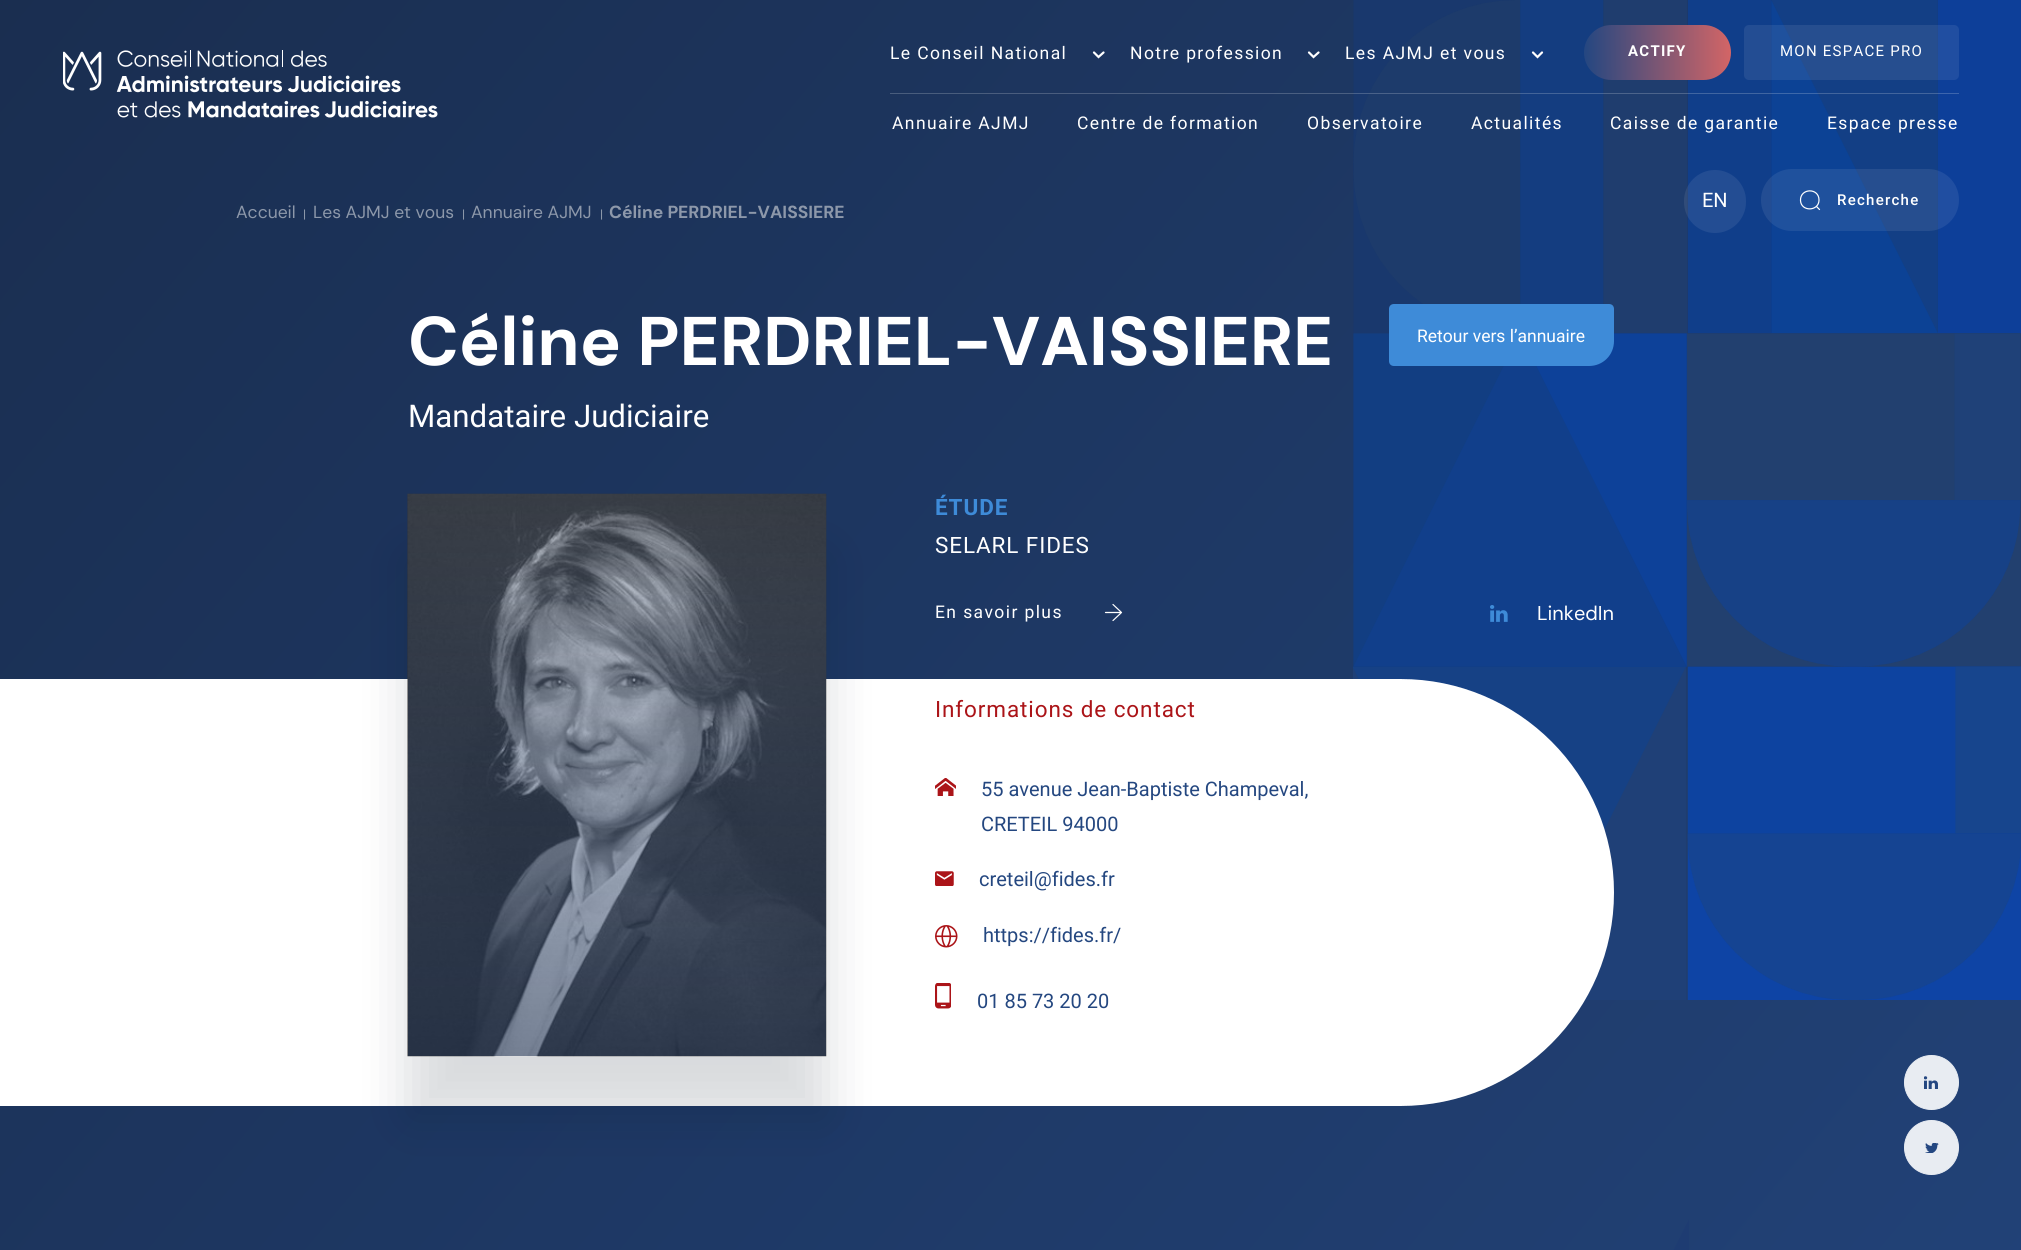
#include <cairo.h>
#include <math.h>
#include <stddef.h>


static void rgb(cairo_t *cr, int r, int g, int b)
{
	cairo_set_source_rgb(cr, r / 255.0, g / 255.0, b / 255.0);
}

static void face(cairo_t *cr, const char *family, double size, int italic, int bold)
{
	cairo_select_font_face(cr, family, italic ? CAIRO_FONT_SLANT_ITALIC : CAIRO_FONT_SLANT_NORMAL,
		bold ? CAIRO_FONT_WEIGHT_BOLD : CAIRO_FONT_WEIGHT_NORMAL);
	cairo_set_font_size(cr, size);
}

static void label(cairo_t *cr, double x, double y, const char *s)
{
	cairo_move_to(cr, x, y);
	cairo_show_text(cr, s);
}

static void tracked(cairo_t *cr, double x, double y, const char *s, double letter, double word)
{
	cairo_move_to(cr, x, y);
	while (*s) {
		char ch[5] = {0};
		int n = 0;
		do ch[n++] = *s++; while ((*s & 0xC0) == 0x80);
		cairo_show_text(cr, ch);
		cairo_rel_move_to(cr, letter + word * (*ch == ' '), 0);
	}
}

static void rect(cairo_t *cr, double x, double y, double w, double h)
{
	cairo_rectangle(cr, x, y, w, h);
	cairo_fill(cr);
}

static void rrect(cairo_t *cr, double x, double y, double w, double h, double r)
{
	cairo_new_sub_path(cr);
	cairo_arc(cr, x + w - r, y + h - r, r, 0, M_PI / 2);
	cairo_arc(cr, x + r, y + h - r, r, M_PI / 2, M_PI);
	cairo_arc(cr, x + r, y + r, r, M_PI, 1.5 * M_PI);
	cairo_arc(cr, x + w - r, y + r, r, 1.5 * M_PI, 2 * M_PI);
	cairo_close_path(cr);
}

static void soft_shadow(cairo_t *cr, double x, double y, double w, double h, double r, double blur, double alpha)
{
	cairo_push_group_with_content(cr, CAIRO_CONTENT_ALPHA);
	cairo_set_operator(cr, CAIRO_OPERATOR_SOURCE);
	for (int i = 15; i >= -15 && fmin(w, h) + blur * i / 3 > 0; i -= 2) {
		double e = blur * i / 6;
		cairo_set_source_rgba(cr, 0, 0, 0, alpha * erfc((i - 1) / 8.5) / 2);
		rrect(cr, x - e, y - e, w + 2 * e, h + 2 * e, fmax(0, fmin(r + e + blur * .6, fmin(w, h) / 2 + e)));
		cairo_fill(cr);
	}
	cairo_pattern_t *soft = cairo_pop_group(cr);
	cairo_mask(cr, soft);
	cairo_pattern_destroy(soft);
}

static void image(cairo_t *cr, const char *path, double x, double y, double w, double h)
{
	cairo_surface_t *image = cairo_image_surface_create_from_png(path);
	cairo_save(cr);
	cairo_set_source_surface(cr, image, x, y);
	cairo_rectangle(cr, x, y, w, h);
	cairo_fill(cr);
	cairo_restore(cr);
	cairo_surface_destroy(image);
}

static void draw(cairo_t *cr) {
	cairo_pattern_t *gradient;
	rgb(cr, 255, 255, 255);
	cairo_paint(cr);
	gradient = cairo_pattern_create_linear(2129, 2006, -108, 129);
	cairo_pattern_add_color_stop_rgba(gradient, 0, 0.137, 0.275, 0.502, 1);
	cairo_pattern_add_color_stop_rgba(gradient, 1, 0.102, 0.18, 0.314, 1);
	cairo_set_source(cr, gradient);
	cairo_pattern_destroy(gradient);
	rect(cr, 0, 0, 2021, 1250);
	image(cr, "image0.png", 63, 50, 375, 68);
	image(cr, "image1.png", 1353, 0, 668, 1000);
	cairo_set_source_rgba(cr, 1, 1, 1, 0.2);
	rect(cr, 890, 93, 1069, 1);
	face(cr, "Roboto", 17.5, 0, 0);
	rgb(cr, 255, 255, 255);
	tracked(cr, 890, 59, "Le Conseil National", 1.4, 0);
	cairo_new_path(cr);
	cairo_move_to(cr, 1103.5, 52.5);
	cairo_line_to(cr, 1098.5, 57);
	cairo_line_to(cr, 1094, 52.5);
	cairo_set_line_width(cr, 2.2);
	cairo_set_line_cap(cr, CAIRO_LINE_CAP_ROUND);
	cairo_stroke(cr);
	tracked(cr, 1130, 59, "Notre profession", 1.4, 0);
	cairo_new_path(cr);
	cairo_move_to(cr, 1318.5, 52.5);
	cairo_line_to(cr, 1313.5, 57);
	cairo_line_to(cr, 1309, 52.5);
	cairo_stroke(cr);
	tracked(cr, 1345, 59, "Les AJMJ et vous", 1.4, 0);
	cairo_new_path(cr);
	cairo_move_to(cr, 1542, 52.5);
	cairo_line_to(cr, 1537.5, 57);
	cairo_line_to(cr, 1533, 52.5);
	cairo_stroke(cr);
	gradient = cairo_pattern_create_linear(1584, 53, 1731, 52);
	cairo_pattern_add_color_stop_rgba(gradient, 0, 0.141, 0.278, 0.506, 1);
	cairo_pattern_add_color_stop_rgba(gradient, 1, 0.827, 0.396, 0.4, 1);
	cairo_set_source(cr, gradient);
	cairo_pattern_destroy(gradient);
	rrect(cr, 1584, 25, 147, 55, 27.5);
	cairo_fill(cr);
	face(cr, "Roboto", 15, 0, 1);
	rgb(cr, 255, 255, 255);
	tracked(cr, 1628, 56, "ACTIFY", 1.25, 0);
	cairo_set_source_rgba(cr, 1, 1, 1, 0.08);
	rrect(cr, 1744, 25, 215, 55, 5);
	cairo_fill(cr);
	face(cr, "Roboto", 15, 0, 0);
	rgb(cr, 255, 255, 255);
	tracked(cr, 1780, 56, "MON ESPACE PRO", 1.25, 0);
	face(cr, "Roboto", 17.5, 0, 0);
	tracked(cr, 892, 129, "Annuaire AJMJ", 1.4, 0);
	tracked(cr, 1077, 129, "Centre de formation", 1.4, 0);
	tracked(cr, 1307, 129, "Observatoire", 1.4, 0);
	tracked(cr, 1471, 129, "Actualités", 1.4, 0);
	tracked(cr, 1610, 129, "Caisse de garantie", 1.4, 0);
	tracked(cr, 1827, 129, "Espace presse", 1.4, 0);
	cairo_set_source_rgba(cr, 1, 1, 1, 0.08);
	rrect(cr, 1684, 170, 62, 63, 31);
	cairo_fill(cr);
	face(cr, "Roboto", 20, 0, 0);
	rgb(cr, 255, 255, 255);
	label(cr, 1702, 207, "EN");
	cairo_set_source_rgba(cr, 1, 1, 1, 0.08);
	rrect(cr, 1761, 169, 198, 62, 31);
	cairo_fill(cr);
	cairo_new_path(cr);
	cairo_move_to(cr, 1819, 200);
	cairo_curve_to(cr, 1819, 211.5, 1801, 212, 1800.5, 200.5);
	cairo_curve_to(cr, 1800, 188, 1819, 187.5, 1819, 200);
	cairo_close_path(cr);
	cairo_move_to(cr, 1819.5, 209.5);
	cairo_line_to(cr, 1816.5, 206.5);
	rgb(cr, 255, 255, 255);
	cairo_set_line_width(cr, 1.2);
	cairo_set_line_join(cr, CAIRO_LINE_JOIN_ROUND);
	cairo_stroke(cr);
	face(cr, "Roboto Medium", 15, 0, 0);
	tracked(cr, 1837, 205, "Recherche", 1.25, 0);
	face(cr, "DM Sans", 17.5, 0, 0);
	rgb(cr, 141, 152, 170);
	label(cr, 236, 218, "Accueil");
	face(cr, "Roboto", 12, 0, 1);
	label(cr, 303, 218, "|");
	face(cr, "DM Sans", 17.5, 0, 0);
	label(cr, 313, 218, "Les AJMJ et vous");
	face(cr, "Roboto", 12, 0, 1);
	label(cr, 462, 218, "|");
	face(cr, "DM Sans", 17.5, 0, 0);
	label(cr, 471, 218, "Annuaire AJMJ");
	face(cr, "Roboto", 12, 0, 1);
	label(cr, 600, 218, "|");
	face(cr, "DM Sans", 17.5, 0, 1);
	label(cr, 609, 218, "Céline PERDRIEL-VAISSIERE");
	face(cr, "DM Sans", 68.75, 0, 1);
	rgb(cr, 255, 255, 255);
	label(cr, 408, 365, "Céline PERDRIEL-VAISSIERE");
	face(cr, "Roboto", 31.25, 0, 0);
	label(cr, 408, 427, "Mandataire Judiciaire");
	rgb(cr, 62, 139, 216);
	cairo_new_path(cr);
	cairo_move_to(cr, 1394, 304);
	cairo_line_to(cr, 1609, 304);
	cairo_curve_to(cr, 1612, 304, 1614, 306, 1614, 309);
	cairo_line_to(cr, 1614, 341);
	cairo_curve_to(cr, 1614, 355, 1603, 366, 1589, 366);
	cairo_line_to(cr, 1394, 366);
	cairo_curve_to(cr, 1391, 366, 1389, 364, 1389, 361);
	cairo_line_to(cr, 1389, 309);
	cairo_curve_to(cr, 1389, 306, 1391, 304, 1394, 304);
	cairo_close_path(cr);
	cairo_fill(cr);
	face(cr, "Roboto", 17.5, 0, 0);
	rgb(cr, 255, 255, 255);
	label(cr, 1417, 342, "Retour vers l’annuaire");
	cairo_new_path(cr);
	cairo_move_to(cr, 0, 679);
	cairo_line_to(cr, 1400.5, 679);
	cairo_curve_to(cr, 1518.5, 679, 1614, 774.5, 1614, 892.5);
	cairo_curve_to(cr, 1614, 1010.5, 1518.5, 1106, 1400.5, 1106);
	cairo_line_to(cr, 0, 1106);
	cairo_close_path(cr);
	cairo_fill(cr);
	rgb(cr, 0, 12, 31);
	soft_shadow(cr, 408, 556, 418, 563, 0, 25, 0.15);
	image(cr, "image2.png", 407, 493, 420, 564);
	face(cr, "Roboto", 22.5, 0, 1);
	rgb(cr, 62, 139, 216);
	tracked(cr, 935, 515, "ÉTUDE", 0.9, 0);
	face(cr, "Roboto", 22.5, 0, 0);
	rgb(cr, 255, 255, 255);
	tracked(cr, 935, 553, "SELARL FIDES", 0.9, 0);
	face(cr, "Roboto", 17.5, 0, 0);
	tracked(cr, 935, 618, "En savoir plus", 1.4, 0);
	cairo_new_path(cr);
	cairo_move_to(cr, 1105.5, 612.5);
	cairo_line_to(cr, 1121.5, 612.5);
	cairo_move_to(cr, 1113, 604.5);
	cairo_line_to(cr, 1121.5, 612.5);
	cairo_line_to(cr, 1113, 620.5);
	cairo_stroke(cr);
	image(cr, "image3.png", 1490, 605, 18, 17);
	face(cr, "DM Sans", 20, 0, 0);
	label(cr, 1537, 620, "LinkedIn");
	face(cr, "Roboto", 22.5, 0, 0);
	rgb(cr, 171, 20, 24);
	tracked(cr, 935, 717, "Informations de contact", 0.9, 0);
	image(cr, "image4.png", 935, 778, 21, 18);
	face(cr, "Roboto", 20, 0, 0);
	rgb(cr, 36, 71, 128);
	label(cr, 981, 796, "55 avenue Jean-Baptiste Champeval,");
	label(cr, 981, 831, "CRETEIL 94000");
	image(cr, "image5.png", 935, 871, 19, 15);
	label(cr, 979, 886, "creteil@fides.fr");
	image(cr, "image6.png", 935, 925, 23, 23);
	label(cr, 983, 942, "https://fides.fr/");
	image(cr, "image7.png", 935, 983, 16, 26);
	label(cr, 977, 1008, "01 85 73 20 20");
	rgb(cr, 30, 60, 114);
	cairo_new_path(cr);
	cairo_move_to(cr, 1572, 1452);
	cairo_line_to(cr, 1689, 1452);
	cairo_line_to(cr, 1689, 1219);
	cairo_close_path(cr);
	cairo_fill(cr);
	rgb(cr, 232, 236, 242);
	cairo_arc(cr, 1931.5, 1082.5, 27, 0, 2 * M_PI);
	cairo_fill_preserve(cr);
	cairo_set_line_width(cr, 1);
	cairo_set_line_cap(cr, CAIRO_LINE_CAP_BUTT);
	cairo_set_line_join(cr, CAIRO_LINE_JOIN_MITER);
	cairo_stroke(cr);
	image(cr, "image8.png", 1924, 1076, 14, 13);
	cairo_arc(cr, 1931.5, 1147.5, 27, 0, 2 * M_PI);
	cairo_fill_preserve(cr);
	cairo_stroke(cr);
	image(cr, "image9.png", 1925, 1143, 14, 10);
}

int main(void) {
	cairo_surface_t *surface = cairo_image_surface_create(CAIRO_FORMAT_RGB24, 2021, 1250);
	cairo_t *cr = cairo_create(surface);
	cairo_font_options_t *options = cairo_font_options_create();
	cairo_font_options_set_hint_metrics(options, CAIRO_HINT_METRICS_OFF);
	cairo_font_options_set_hint_style(options, CAIRO_HINT_STYLE_NONE);
	cairo_set_font_options(cr, options);
	cairo_set_miter_limit(cr, 4);
	draw(cr);
	cairo_surface_write_to_png(surface, "render.png");
	cairo_font_options_destroy(options);
	cairo_destroy(cr);
	cairo_surface_destroy(surface);
	return 0;
}
